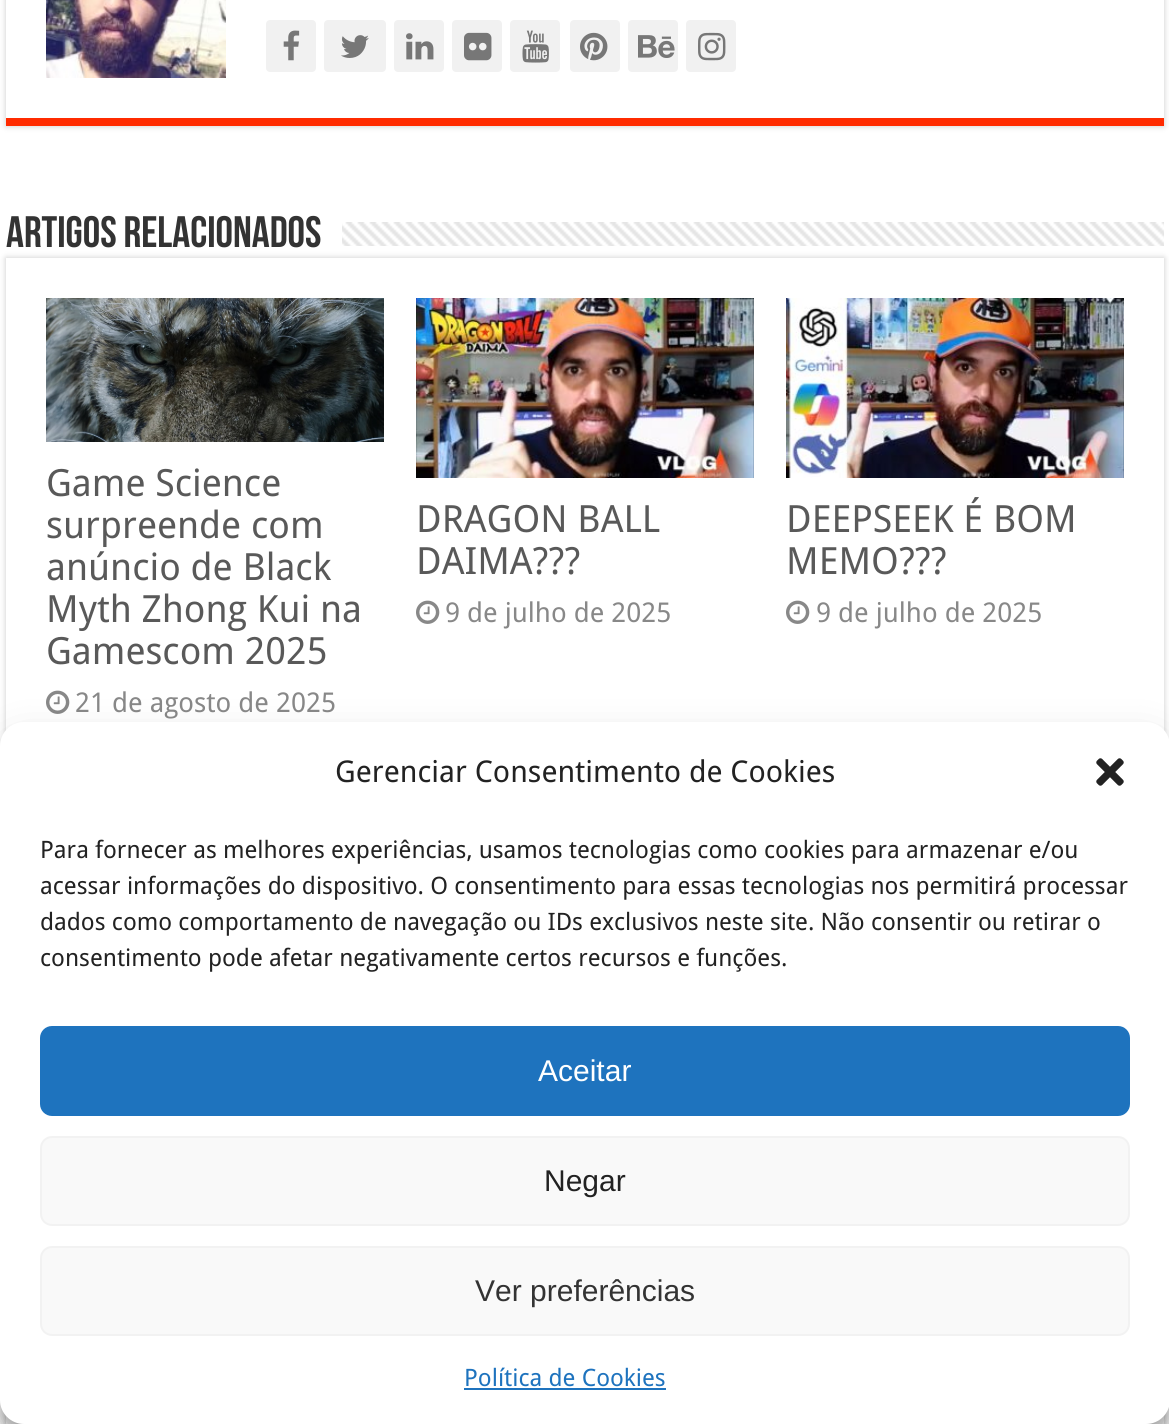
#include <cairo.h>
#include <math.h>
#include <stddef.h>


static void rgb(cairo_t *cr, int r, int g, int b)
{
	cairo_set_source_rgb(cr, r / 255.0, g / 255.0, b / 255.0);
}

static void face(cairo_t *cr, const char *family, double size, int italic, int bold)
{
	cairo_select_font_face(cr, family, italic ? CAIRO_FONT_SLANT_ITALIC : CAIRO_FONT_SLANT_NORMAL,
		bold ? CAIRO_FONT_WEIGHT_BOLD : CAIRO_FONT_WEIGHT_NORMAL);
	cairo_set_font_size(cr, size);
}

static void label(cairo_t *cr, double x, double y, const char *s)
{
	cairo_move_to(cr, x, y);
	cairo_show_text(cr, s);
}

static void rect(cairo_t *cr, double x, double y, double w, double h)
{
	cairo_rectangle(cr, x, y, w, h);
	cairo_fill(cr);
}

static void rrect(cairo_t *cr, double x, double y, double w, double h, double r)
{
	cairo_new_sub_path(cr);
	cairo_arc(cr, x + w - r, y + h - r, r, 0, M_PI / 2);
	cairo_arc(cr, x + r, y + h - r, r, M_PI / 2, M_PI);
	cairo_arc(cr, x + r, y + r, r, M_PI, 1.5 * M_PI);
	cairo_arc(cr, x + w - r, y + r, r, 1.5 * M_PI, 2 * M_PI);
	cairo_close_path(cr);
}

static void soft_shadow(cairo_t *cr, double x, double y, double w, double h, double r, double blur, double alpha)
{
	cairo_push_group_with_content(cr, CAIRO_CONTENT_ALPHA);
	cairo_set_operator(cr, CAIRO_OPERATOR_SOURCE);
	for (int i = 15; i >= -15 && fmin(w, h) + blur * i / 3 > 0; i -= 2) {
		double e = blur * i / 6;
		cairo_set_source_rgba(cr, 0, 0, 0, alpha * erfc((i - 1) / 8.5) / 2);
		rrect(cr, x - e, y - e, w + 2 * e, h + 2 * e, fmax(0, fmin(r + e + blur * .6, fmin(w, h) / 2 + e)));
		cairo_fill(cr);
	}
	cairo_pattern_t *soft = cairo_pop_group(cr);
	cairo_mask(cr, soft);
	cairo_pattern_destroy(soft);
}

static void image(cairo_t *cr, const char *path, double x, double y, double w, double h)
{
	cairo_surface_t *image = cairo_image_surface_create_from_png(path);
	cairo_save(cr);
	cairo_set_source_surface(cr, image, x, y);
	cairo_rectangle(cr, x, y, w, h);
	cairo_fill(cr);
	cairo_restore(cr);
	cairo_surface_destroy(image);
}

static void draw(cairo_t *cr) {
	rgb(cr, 255, 255, 255);
	cairo_paint(cr);
	cairo_save(cr);
	cairo_set_fill_rule(cr, CAIRO_FILL_RULE_EVEN_ODD);
	cairo_new_path(cr);
	cairo_move_to(cr, 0, 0);
	cairo_line_to(cr, 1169, 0);
	cairo_line_to(cr, 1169, 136);
	cairo_line_to(cr, 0, 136);
	cairo_close_path(cr);
	cairo_move_to(cr, 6, -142);
	cairo_line_to(cr, 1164, -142);
	cairo_line_to(cr, 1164, 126);
	cairo_line_to(cr, 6, 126);
	cairo_close_path(cr);
	cairo_clip(cr);
	rgb(cr, 202, 202, 202);
	soft_shadow(cr, 6, -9, 1158, 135, 0, 3, 1);
	cairo_restore(cr);
	rgb(cr, 255, 43, 0);
	rect(cr, 6, 118, 1158, 8);
	image(cr, "image0.png", 46, 0, 180, 78);
	rgb(cr, 241, 241, 241);
	rrect(cr, 266, 20, 50, 52, 4);
	cairo_fill(cr);
	image(cr, "image1.png", 283, 30, 17, 31);
	rrect(cr, 324, 20, 62, 52, 4);
	cairo_fill(cr);
	image(cr, "image2.png", 341, 35, 28, 23);
	rrect(cr, 394, 20, 50, 52, 4);
	cairo_fill(cr);
	image(cr, "image3.png", 406, 33, 28, 27);
	rrect(cr, 452, 20, 50, 52, 4);
	cairo_fill(cr);
	image(cr, "image4.png", 464, 32, 28, 29);
	rrect(cr, 510, 20, 50, 52, 4);
	cairo_fill(cr);
	image(cr, "image5.png", 522, 30, 27, 33);
	rrect(cr, 570, 20, 50, 52, 4);
	cairo_fill(cr);
	image(cr, "image6.png", 580, 32, 28, 29);
	rrect(cr, 628, 20, 50, 52, 4);
	cairo_fill(cr);
	image(cr, "image7.png", 638, 35, 37, 23);
	rrect(cr, 686, 20, 50, 52, 4);
	cairo_fill(cr);
	image(cr, "image8.png", 698, 32, 28, 29);
	face(cr, "Bebas Neue", 44, 0, 1);
	rgb(cr, 51, 51, 51);
	label(cr, 6, 247, "Artigos relacionados");
	image(cr, "image9.png", 342, 222, 822, 24);
	cairo_save(cr);
	cairo_set_fill_rule(cr, CAIRO_FILL_RULE_EVEN_ODD);
	cairo_new_path(cr);
	cairo_move_to(cr, 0, 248);
	cairo_line_to(cr, 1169, 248);
	cairo_line_to(cr, 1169, 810);
	cairo_line_to(cr, 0, 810);
	cairo_close_path(cr);
	cairo_move_to(cr, 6, 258);
	cairo_line_to(cr, 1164, 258);
	cairo_line_to(cr, 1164, 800);
	cairo_line_to(cr, 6, 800);
	cairo_close_path(cr);
	cairo_clip(cr);
	rgb(cr, 202, 202, 202);
	soft_shadow(cr, 6, 258, 1158, 542, 0, 3, 1);
	cairo_restore(cr);
	image(cr, "image10.png", 46, 298, 338, 144);
	face(cr, "Droid Sans", 37.5, 0, 0);
	rgb(cr, 89, 89, 89);
	label(cr, 46, 496, "Game Science");
	label(cr, 46, 538, "surpreende com");
	label(cr, 46, 580, "anúncio de Black");
	label(cr, 46, 622, "Myth Zhong Kui na");
	label(cr, 46, 664, "Gamescom 2025");
	image(cr, "image11.png", 46, 690, 24, 24);
	face(cr, "Droid Sans", 27.25, 0, 0);
	rgb(cr, 136, 136, 136);
	label(cr, 75, 712, "21 de agosto de 2025");
	image(cr, "image12.png", 416, 298, 338, 180);
	face(cr, "Droid Sans", 37.5, 0, 0);
	rgb(cr, 89, 89, 89);
	label(cr, 416, 532, "DRAGON BALL");
	label(cr, 416, 574, "DAIMA?\077?");
	image(cr, "image11.png", 416, 600, 24, 24);
	face(cr, "Droid Sans", 27.25, 0, 0);
	rgb(cr, 136, 136, 136);
	label(cr, 445, 622, "9 de julho de 2025");
	image(cr, "image13.png", 786, 298, 338, 180);
	face(cr, "Droid Sans", 37.5, 0, 0);
	rgb(cr, 89, 89, 89);
	label(cr, 786, 532, "DEEPSEEK É BOM");
	label(cr, 786, 574, "MEMO?\077?");
	image(cr, "image11.png", 786, 600, 24, 24);
	face(cr, "Droid Sans", 27.25, 0, 0);
	rgb(cr, 136, 136, 136);
	label(cr, 816, 622, "9 de julho de 2025");
	cairo_save(cr);
	cairo_set_fill_rule(cr, CAIRO_FILL_RULE_EVEN_ODD);
	cairo_new_path(cr);
	cairo_move_to(cr, 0, 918);
	cairo_line_to(cr, 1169, 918);
	cairo_line_to(cr, 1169, 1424);
	cairo_line_to(cr, 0, 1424);
	cairo_close_path(cr);
	cairo_move_to(cr, 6, 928);
	cairo_line_to(cr, 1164, 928);
	cairo_line_to(cr, 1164, 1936);
	cairo_line_to(cr, 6, 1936);
	cairo_close_path(cr);
	cairo_clip(cr);
	rgb(cr, 202, 202, 202);
	soft_shadow(cr, 6, 928, 1158, 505, 0, 3, 1);
	cairo_restore(cr);
	rgb(cr, 0, 0, 0);
	soft_shadow(cr, 0, 734, 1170, 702, 24, 6, 0.23);
	soft_shadow(cr, 0, 742, 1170, 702, 24, 20, 0.19);
	rgb(cr, 255, 255, 255);
	rrect(cr, 0, 722, 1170, 702, 24);
	cairo_fill(cr);
	face(cr, "Droid Sans", 30, 0, 0);
	rgb(cr, 34, 34, 34);
	label(cr, 335, 782, "Gerenciar Consentimento de Cookies");
	image(cr, "image14.png", 1096, 758, 28, 28);
	face(cr, "Droid Sans", 24, 0, 0);
	label(cr, 40, 858, "Para fornecer as melhores experiências, usamos tecnologias como cookies para armazenar e/ou");
	label(cr, 40, 894, "acessar informações do dispositivo. O consentimento para essas tecnologias nos permitirá processar");
	label(cr, 40, 930, "dados como comportamento de navegação ou IDs exclusivos neste site. Não consentir ou retirar o");
	label(cr, 40, 966, "consentimento pode afetar negativamente certos recursos e funções.");
	rgb(cr, 30, 115, 190);
	rrect(cr, 41, 1027, 1088, 88, 11);
	cairo_fill_preserve(cr);
	cairo_stroke(cr);
	face(cr, "Liberation Sans", 30, 0, 0);
	rgb(cr, 255, 255, 255);
	label(cr, 538, 1081, "Aceitar");
	rgb(cr, 249, 249, 249);
	rrect(cr, 41, 1137, 1088, 88, 11);
	cairo_fill_preserve(cr);
	rgb(cr, 242, 242, 242);
	cairo_stroke(cr);
	rgb(cr, 34, 34, 34);
	label(cr, 544, 1191, "Negar");
	rgb(cr, 249, 249, 249);
	rrect(cr, 41, 1247, 1088, 88, 11);
	cairo_fill_preserve(cr);
	rgb(cr, 242, 242, 242);
	cairo_stroke(cr);
	rgb(cr, 51, 51, 51);
	label(cr, 475, 1301, "Ver preferências");
	face(cr, "Droid Sans", 24, 0, 0);
	rgb(cr, 30, 115, 190);
	label(cr, 464, 1386, "Política de Cookies");
	rect(cr, 464, 1388, 202, 2);
}

int main(void) {
	cairo_surface_t *surface = cairo_image_surface_create(CAIRO_FORMAT_RGB24, 1169, 1424);
	cairo_t *cr = cairo_create(surface);
	cairo_font_options_t *options = cairo_font_options_create();
	cairo_font_options_set_hint_metrics(options, CAIRO_HINT_METRICS_OFF);
	cairo_font_options_set_hint_style(options, CAIRO_HINT_STYLE_NONE);
	cairo_set_font_options(cr, options);
	cairo_set_miter_limit(cr, 4);
	draw(cr);
	cairo_surface_write_to_png(surface, "render.png");
	cairo_font_options_destroy(options);
	cairo_destroy(cr);
	cairo_surface_destroy(surface);
	return 0;
}
